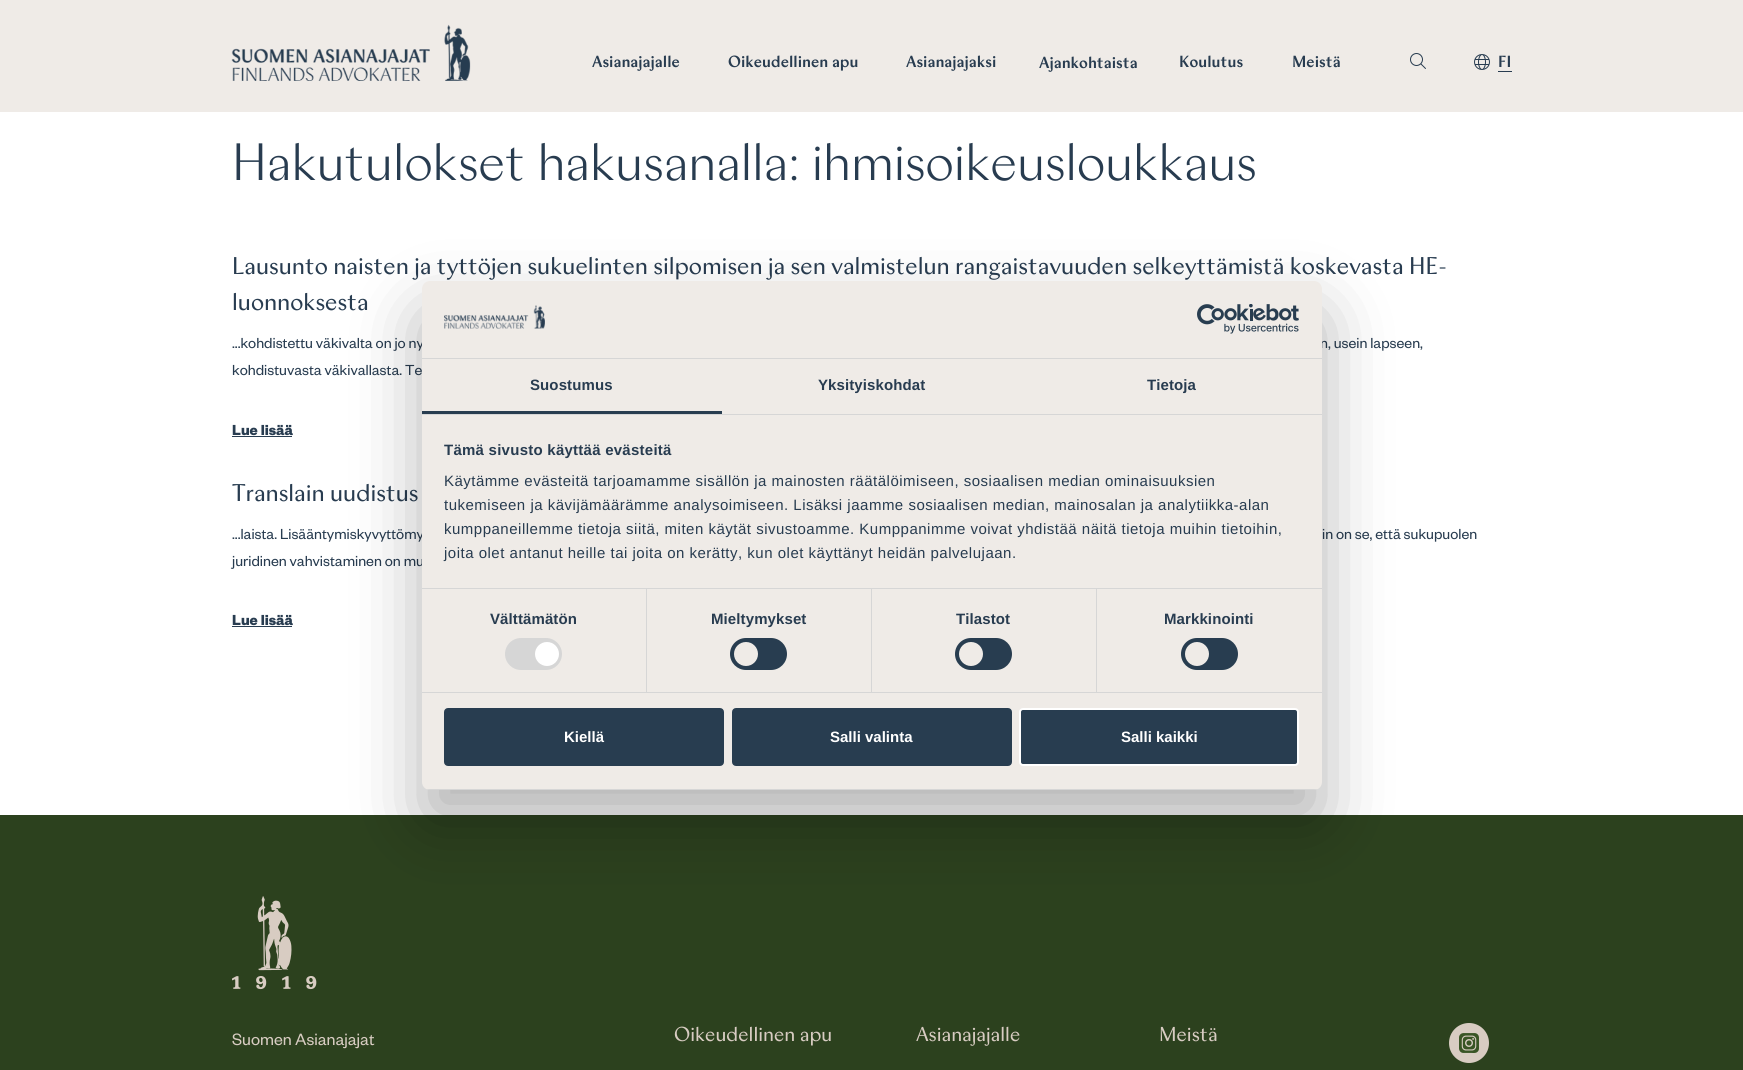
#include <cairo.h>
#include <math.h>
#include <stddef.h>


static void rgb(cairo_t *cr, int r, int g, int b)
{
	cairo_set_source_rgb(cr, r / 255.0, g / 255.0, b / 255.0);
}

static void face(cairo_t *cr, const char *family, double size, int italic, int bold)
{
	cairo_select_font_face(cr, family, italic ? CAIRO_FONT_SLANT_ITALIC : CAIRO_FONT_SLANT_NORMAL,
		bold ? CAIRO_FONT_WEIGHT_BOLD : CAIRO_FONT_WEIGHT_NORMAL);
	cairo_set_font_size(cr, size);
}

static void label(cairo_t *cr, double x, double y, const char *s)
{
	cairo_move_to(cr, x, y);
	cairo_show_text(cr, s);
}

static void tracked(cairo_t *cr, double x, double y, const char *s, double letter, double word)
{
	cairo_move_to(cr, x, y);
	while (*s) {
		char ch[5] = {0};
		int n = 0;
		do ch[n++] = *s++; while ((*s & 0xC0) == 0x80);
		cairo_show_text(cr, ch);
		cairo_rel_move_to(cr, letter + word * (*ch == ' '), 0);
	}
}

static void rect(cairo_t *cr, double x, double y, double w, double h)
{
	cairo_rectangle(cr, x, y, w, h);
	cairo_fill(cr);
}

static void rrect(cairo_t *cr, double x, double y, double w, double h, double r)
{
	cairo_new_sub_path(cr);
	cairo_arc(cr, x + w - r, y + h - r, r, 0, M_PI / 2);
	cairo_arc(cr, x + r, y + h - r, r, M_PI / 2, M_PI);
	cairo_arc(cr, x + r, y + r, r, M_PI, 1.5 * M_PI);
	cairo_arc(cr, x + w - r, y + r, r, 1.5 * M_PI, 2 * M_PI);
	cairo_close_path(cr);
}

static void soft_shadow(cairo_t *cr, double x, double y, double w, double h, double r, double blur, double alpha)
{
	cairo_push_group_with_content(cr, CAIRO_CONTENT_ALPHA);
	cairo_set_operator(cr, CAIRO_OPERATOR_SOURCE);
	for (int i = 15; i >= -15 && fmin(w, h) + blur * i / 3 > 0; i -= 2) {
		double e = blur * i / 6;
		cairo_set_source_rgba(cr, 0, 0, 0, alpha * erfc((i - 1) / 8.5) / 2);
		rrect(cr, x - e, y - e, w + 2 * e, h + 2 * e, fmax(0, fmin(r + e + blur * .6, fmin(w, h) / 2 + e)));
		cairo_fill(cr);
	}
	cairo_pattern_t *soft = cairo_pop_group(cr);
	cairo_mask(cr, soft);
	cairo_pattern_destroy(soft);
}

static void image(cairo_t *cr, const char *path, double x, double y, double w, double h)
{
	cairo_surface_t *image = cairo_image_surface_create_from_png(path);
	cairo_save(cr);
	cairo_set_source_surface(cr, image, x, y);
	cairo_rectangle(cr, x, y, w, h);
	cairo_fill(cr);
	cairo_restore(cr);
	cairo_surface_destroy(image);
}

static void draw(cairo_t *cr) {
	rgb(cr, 255, 255, 255);
	cairo_paint(cr);
	rgb(cr, 239, 235, 231);
	rect(cr, 0, 0, 1743, 112);
	image(cr, "image0.png", 231, 24, 240, 57);
	face(cr, "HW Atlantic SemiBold", 16, 0, 0);
	rgb(cr, 40, 60, 80);
	label(cr, 592, 67, "Asianajajalle");
	label(cr, 728, 67, "Oikeudellinen apu");
	label(cr, 906, 67, "Asianajajaksi");
	label(cr, 1039, 68, "Ajankohtaista");
	label(cr, 1179, 67, "Koulutus");
	label(cr, 1292, 67, "Meistä");
	image(cr, "image1.png", 1410, 53, 16, 16);
	image(cr, "image2.png", 1474, 54, 16, 16);
	rect(cr, 1498, 71, 14, 1);
	label(cr, 1498, 67, "FI");
	face(cr, "HW Atlantic", 52, 0, 0);
	label(cr, 232, 180, "Hakutulokset hakusanalla: ihmisoikeusloukkaus");
	face(cr, "HW Atlantic Medium", 24, 0, 0);
	label(cr, 232, 274, "Lausunto naisten ja tyttöjen sukuelinten silpomisen ja sen valmistelun rangaistavuuden selkeyttämistä koskevasta HE-");
	label(cr, 232, 310, "luonnoksesta");
	face(cr, "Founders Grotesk", 16, 0, 0);
	label(cr, 232, 348, "...kohdistettu väkivalta on jo ny");
	label(cr, 1320, 348, "n, usein lapseen,");
	label(cr, 232, 375, "kohdistuvasta väkivallasta. Te");
	face(cr, "Founders Grotesk", 16, 0, 1);
	label(cr, 232, 435, "Lue lisää");
	rect(cr, 232, 436, 60, 1);
	face(cr, "HW Atlantic Medium", 24, 0, 0);
	label(cr, 232, 501, "Translain uudistus");
	face(cr, "Founders Grotesk", 16, 0, 0);
	label(cr, 232, 539, "...laista. Lisääntymiskyvyttömy");
	label(cr, 1322, 539, "in on se, että sukupuolen");
	label(cr, 232, 566, "juridinen vahvistaminen on mu");
	face(cr, "Founders Grotesk", 16, 0, 1);
	label(cr, 232, 625, "Lue lisää");
	rect(cr, 232, 626, 60, 1);
	rgb(cr, 44, 65, 30);
	rect(cr, 0, 815, 1743, 255);
	rgb(cr, 0, 0, 0);
	soft_shadow(cr, 422, 313, 900, 509, 8, 34, 0.3);
	rgb(cr, 239, 235, 231);
	rrect(cr, 422, 281, 900, 509, 8);
	cairo_fill(cr);
	rgb(cr, 214, 214, 214);
	rect(cr, 422, 358, 900, 1);
	image(cr, "image3.png", 444, 305, 101, 24);
	image(cr, "image4.png", 1197, 304, 102, 30);
	rect(cr, 422, 414, 900, 1);
	rgb(cr, 40, 61, 80);
	rect(cr, 422, 411, 300, 3);
	face(cr, "Liberation Sans", 15, 0, 1);
	rgb(cr, 40, 60, 80);
	tracked(cr, 530, 390, "Suostumus", 0.1, 0);
	tracked(cr, 818, 390, "Yksityiskohdat", 0.1, 0);
	tracked(cr, 1147, 390, "Tietoja", 0.1, 0);
	rgb(cr, 214, 214, 214);
	rect(cr, 422, 588, 900, 1);
	rgb(cr, 40, 60, 80);
	tracked(cr, 444, 455, "Tämä sivusto käyttää evästeitä", 0.25, 0);
	face(cr, "Liberation Sans", 15, 0, 0);
	tracked(cr, 444, 486, "Käytämme evästeitä tarjoamamme sisällön ja mainosten räätälöimiseen, sosiaalisen median ominaisuuksien", 0.5, 0);
	tracked(cr, 444, 510, "tukemiseen ja kävijämäärämme analysoimiseen. Lisäksi jaamme sosiaalisen median, mainosalan ja analytiikka-alan", 0.5, 0);
	tracked(cr, 444, 534, "kumppaneillemme tietoja siitä, miten käytät sivustoamme. Kumppanimme voivat yhdistää näitä tietoja muihin tietoihin,", 0.5, 0);
	tracked(cr, 444, 558, "joita olet antanut heille tai joita on kerätty, kun olet käyttänyt heidän palvelujaan.", 0.5, 0);
	rgb(cr, 214, 214, 214);
	rect(cr, 422, 692, 900, 1);
	rect(cr, 646, 589, 1, 103);
	face(cr, "Liberation Sans", 15, 0, 1);
	rgb(cr, 40, 60, 80);
	tracked(cr, 490, 624, "Välttämätön", 0.1, 0);
	rgb(cr, 214, 214, 214);
	rrect(cr, 505, 638, 57, 32, 16);
	cairo_fill(cr);
	rgb(cr, 255, 255, 255);
	cairo_arc(cr, 547, 654, 12, 0, 2 * M_PI);
	cairo_fill(cr);
	rgb(cr, 214, 214, 214);
	rect(cr, 871, 589, 1, 103);
	rgb(cr, 40, 60, 80);
	tracked(cr, 711, 624, "Mieltymykset", 0.1, 0);
	rgb(cr, 40, 61, 80);
	rrect(cr, 730, 638, 57, 32, 16);
	cairo_fill(cr);
	rgb(cr, 239, 235, 231);
	cairo_arc(cr, 746, 654, 12, 0, 2 * M_PI);
	cairo_fill(cr);
	rgb(cr, 214, 214, 214);
	rect(cr, 1096, 589, 1, 103);
	rgb(cr, 40, 60, 80);
	tracked(cr, 956, 624, "Tilastot", 0.1, 0);
	rgb(cr, 40, 61, 80);
	rrect(cr, 955, 638, 57, 32, 16);
	cairo_fill(cr);
	rgb(cr, 239, 235, 231);
	cairo_arc(cr, 971, 654, 12, 0, 2 * M_PI);
	cairo_fill(cr);
	rgb(cr, 40, 60, 80);
	tracked(cr, 1164, 624, "Markkinointi", 0.1, 0);
	rgb(cr, 40, 61, 80);
	rrect(cr, 1181, 638, 57, 32, 16);
	cairo_fill(cr);
	rgb(cr, 239, 235, 231);
	cairo_arc(cr, 1197, 654, 12, 0, 2 * M_PI);
	cairo_fill(cr);
	cairo_save(cr);
	rrect(cr, 422, 281, 900, 509, 8);
	cairo_clip(cr);
	rgb(cr, 214, 214, 214);
	rect(cr, 422, 789, 900, 1);
	cairo_restore(cr);
	rgb(cr, 40, 61, 80);
	rrect(cr, 445, 709, 278, 56, 3);
	cairo_fill_preserve(cr);
	cairo_stroke(cr);
	rgb(cr, 255, 255, 255);
	label(cr, 564, 742, "Kiellä");
	rgb(cr, 40, 61, 80);
	rrect(cr, 733, 709, 278, 56, 3);
	cairo_fill_preserve(cr);
	cairo_stroke(cr);
	rgb(cr, 255, 255, 255);
	label(cr, 830, 742, "Salli valinta");
	rgb(cr, 40, 61, 80);
	rrect(cr, 1020, 709, 278, 56, 3);
	cairo_fill_preserve(cr);
	rgb(cr, 255, 255, 255);
	cairo_stroke(cr);
	label(cr, 1121, 742, "Salli kaikki");
	image(cr, "image5.png", 232, 896, 85, 94);
	face(cr, "Founders Grotesk", 18, 0, 0);
	rgb(cr, 216, 204, 194);
	label(cr, 232, 1045, "Suomen Asianajajat");
	face(cr, "HW Atlantic Medium", 20, 0, 0);
	label(cr, 674, 1041, "Oikeudellinen apu");
	label(cr, 916, 1041, "Asianajajalle");
	label(cr, 1159, 1041, "Meistä");
	cairo_new_path(cr);
	cairo_arc(cr, 1469, 1043, 20, 0, 2 * M_PI);
	cairo_fill(cr);
	image(cr, "image6.png", 1459, 1033, 20, 20);
}

int main(void) {
	cairo_surface_t *surface = cairo_image_surface_create(CAIRO_FORMAT_RGB24, 1743, 1070);
	cairo_t *cr = cairo_create(surface);
	cairo_font_options_t *options = cairo_font_options_create();
	cairo_font_options_set_hint_metrics(options, CAIRO_HINT_METRICS_OFF);
	cairo_font_options_set_hint_style(options, CAIRO_HINT_STYLE_NONE);
	cairo_set_font_options(cr, options);
	cairo_set_miter_limit(cr, 4);
	draw(cr);
	cairo_surface_write_to_png(surface, "render.png");
	cairo_font_options_destroy(options);
	cairo_destroy(cr);
	cairo_surface_destroy(surface);
	return 0;
}
